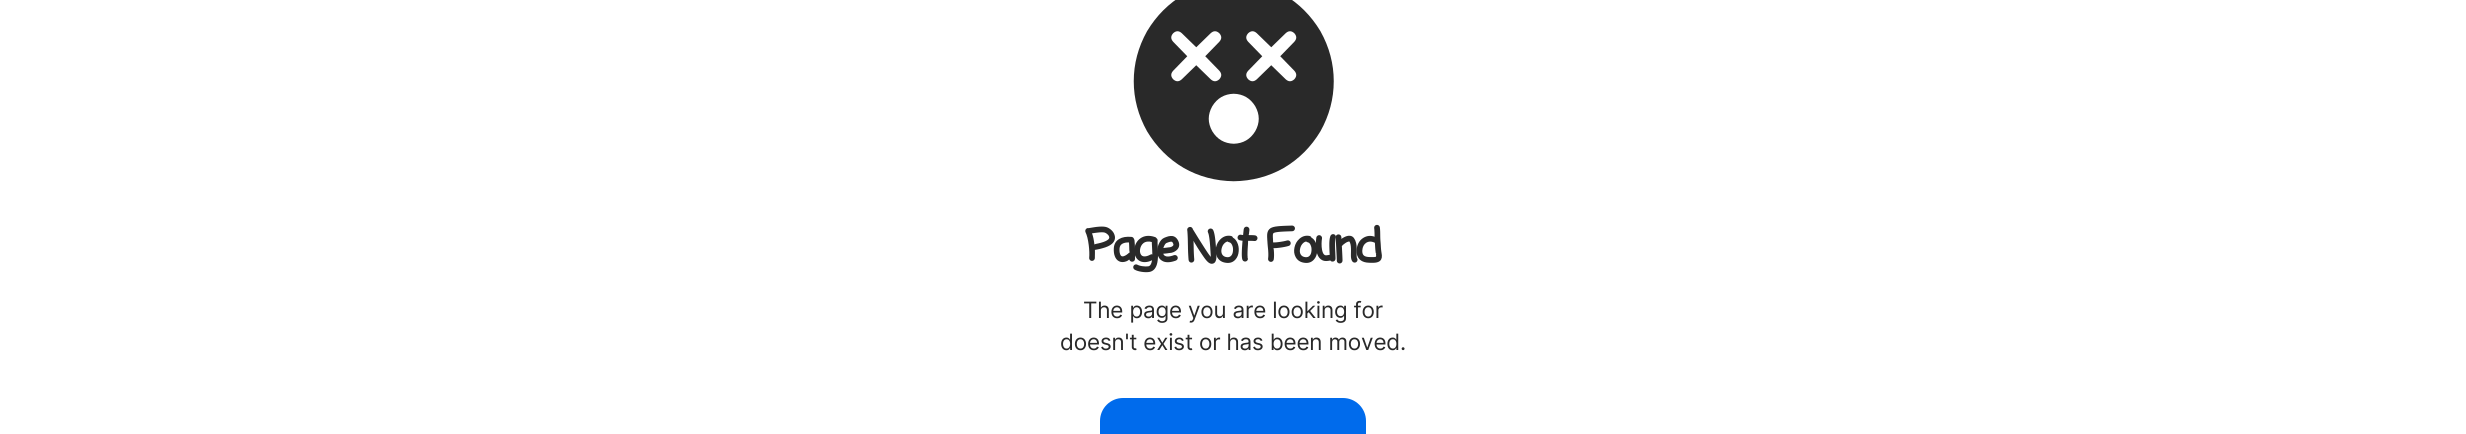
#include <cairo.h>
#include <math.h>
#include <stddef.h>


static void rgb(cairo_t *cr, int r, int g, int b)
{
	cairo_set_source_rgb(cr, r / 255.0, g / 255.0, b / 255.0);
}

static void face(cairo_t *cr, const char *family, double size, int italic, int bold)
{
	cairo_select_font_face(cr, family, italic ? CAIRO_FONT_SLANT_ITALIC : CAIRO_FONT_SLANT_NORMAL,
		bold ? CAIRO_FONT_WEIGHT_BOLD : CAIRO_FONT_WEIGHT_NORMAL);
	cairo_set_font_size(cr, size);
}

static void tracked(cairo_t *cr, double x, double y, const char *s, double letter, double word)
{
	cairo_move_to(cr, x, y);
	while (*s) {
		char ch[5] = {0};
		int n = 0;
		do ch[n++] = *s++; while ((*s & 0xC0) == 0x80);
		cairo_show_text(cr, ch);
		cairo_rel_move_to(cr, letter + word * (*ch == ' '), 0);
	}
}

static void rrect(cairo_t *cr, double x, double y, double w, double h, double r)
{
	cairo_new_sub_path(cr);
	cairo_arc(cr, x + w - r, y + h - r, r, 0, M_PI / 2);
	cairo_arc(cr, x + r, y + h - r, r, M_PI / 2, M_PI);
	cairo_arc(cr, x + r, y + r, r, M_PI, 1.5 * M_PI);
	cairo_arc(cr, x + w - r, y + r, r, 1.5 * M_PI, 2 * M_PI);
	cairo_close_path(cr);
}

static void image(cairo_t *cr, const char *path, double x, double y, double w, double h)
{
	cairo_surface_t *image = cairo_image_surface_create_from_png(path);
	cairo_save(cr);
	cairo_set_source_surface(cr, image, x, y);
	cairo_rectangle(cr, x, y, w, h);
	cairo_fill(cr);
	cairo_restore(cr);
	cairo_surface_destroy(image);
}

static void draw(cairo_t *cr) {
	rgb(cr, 255, 255, 255);
	cairo_paint(cr);
	image(cr, "image0.png", 1133, 0, 201, 182);
	face(cr, "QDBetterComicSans", 45, 0, 1);
	rgb(cr, 41, 41, 41);
	tracked(cr, 1085, 261, "Page Not Found", -0.2, 0);
	face(cr, "Inter", 22.5, 0, 0);
	tracked(cr, 1083, 318, "The page you are looking for", -0.2, 0);
	tracked(cr, 1060, 350, "doesn't exist or has been moved.", -0.2, 0);
	rgb(cr, 0, 107, 236);
	rrect(cr, 1100, 398, 266, 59, 23);
	cairo_fill(cr);
}

int main(void) {
	cairo_surface_t *surface = cairo_image_surface_create(CAIRO_FORMAT_RGB24, 2466, 434);
	cairo_t *cr = cairo_create(surface);
	cairo_font_options_t *options = cairo_font_options_create();
	cairo_font_options_set_hint_metrics(options, CAIRO_HINT_METRICS_OFF);
	cairo_font_options_set_hint_style(options, CAIRO_HINT_STYLE_NONE);
	cairo_set_font_options(cr, options);
	cairo_set_miter_limit(cr, 4);
	draw(cr);
	cairo_surface_write_to_png(surface, "render.png");
	cairo_font_options_destroy(options);
	cairo_destroy(cr);
	cairo_surface_destroy(surface);
	return 0;
}
